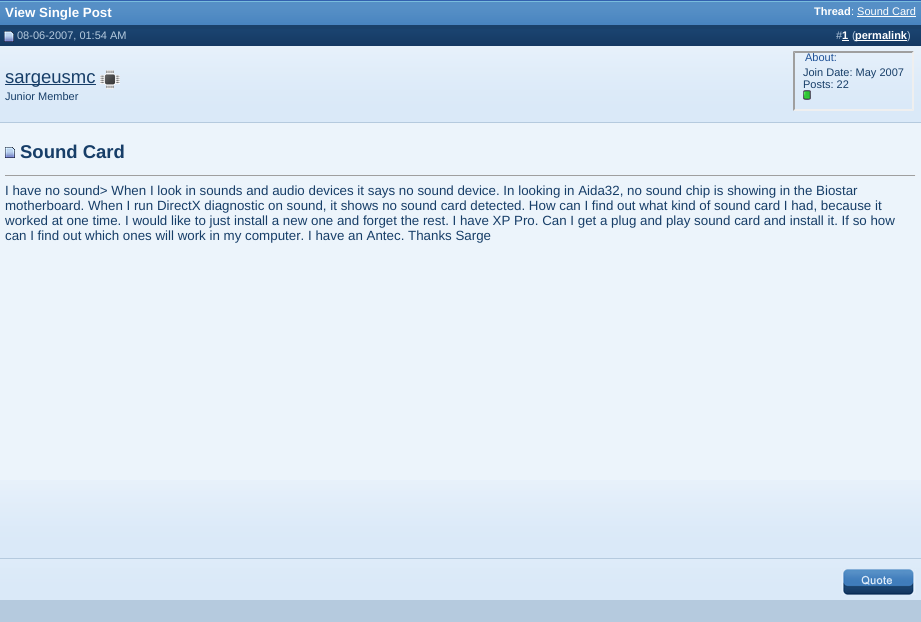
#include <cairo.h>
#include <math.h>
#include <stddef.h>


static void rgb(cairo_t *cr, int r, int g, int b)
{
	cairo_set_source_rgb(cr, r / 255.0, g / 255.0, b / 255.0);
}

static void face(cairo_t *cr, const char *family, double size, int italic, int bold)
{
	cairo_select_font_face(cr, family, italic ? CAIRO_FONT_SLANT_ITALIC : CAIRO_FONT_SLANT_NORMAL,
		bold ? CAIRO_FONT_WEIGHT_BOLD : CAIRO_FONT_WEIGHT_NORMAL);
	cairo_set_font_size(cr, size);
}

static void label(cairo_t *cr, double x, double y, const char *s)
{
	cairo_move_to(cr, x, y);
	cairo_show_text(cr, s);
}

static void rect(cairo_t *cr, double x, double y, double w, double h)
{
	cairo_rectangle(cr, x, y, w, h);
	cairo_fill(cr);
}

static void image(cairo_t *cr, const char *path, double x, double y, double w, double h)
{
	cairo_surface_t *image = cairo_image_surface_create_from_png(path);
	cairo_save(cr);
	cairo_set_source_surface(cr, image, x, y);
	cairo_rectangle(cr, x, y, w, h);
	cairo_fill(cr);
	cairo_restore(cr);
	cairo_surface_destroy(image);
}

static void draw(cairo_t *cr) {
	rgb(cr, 255, 255, 255);
	cairo_paint(cr);
	image(cr, "image0.png", 0, 0, 921, 25);
	face(cr, "Liberation Sans", 13.33, 0, 1);
	rgb(cr, 255, 255, 255);
	label(cr, 5, 17, "View Single Post");
	face(cr, "Liberation Sans", 11, 0, 1);
	label(cr, 814, 15, "Thread");
	face(cr, "Liberation Sans", 11, 0, 0);
	label(cr, 851, 15, ": Sound Card");
	rect(cr, 857, 16, 59, 1);
	image(cr, "image1.png", 0, 25, 921, 21);
	image(cr, "image2.png", 4, 31, 10, 11);
	rgb(cr, 181, 202, 222);
	label(cr, 17, 39, "08-06-2007, 01:54 AM");
	label(cr, 836, 39, "#");
	face(cr, "Liberation Sans", 11, 0, 1);
	rgb(cr, 255, 255, 255);
	label(cr, 842, 39, "1");
	rect(cr, 842, 40, 7, 1);
	face(cr, "Liberation Sans", 11, 0, 0);
	rgb(cr, 181, 202, 222);
	label(cr, 852, 39, "(");
	rgb(cr, 255, 255, 255);
	rect(cr, 855, 40, 52, 1);
	face(cr, "Liberation Sans", 11, 0, 1);
	label(cr, 855, 39, "permalink");
	face(cr, "Liberation Sans", 11, 0, 0);
	rgb(cr, 181, 202, 222);
	label(cr, 907, 39, ")");
	image(cr, "image3.png", 0, 46, 921, 76);
	rect(cr, 0, 122, 921, 1);
	rgb(cr, 23, 62, 104);
	rect(cr, 5, 84, 91, 1);
	face(cr, "Liberation Sans", 18.5, 0, 0);
	label(cr, 5, 83, "sargeusmc");
	image(cr, "image4.png", 100, 70, 20, 19);
	face(cr, "Liberation Sans", 11, 0, 0);
	label(cr, 5, 100, "Junior Member");
	rgb(cr, 159, 159, 159);
	cairo_new_path(cr);
	cairo_move_to(cr, 793, 51);
	cairo_line_to(cr, 914, 51);
	cairo_line_to(cr, 912, 53);
	cairo_line_to(cr, 795, 53);
	cairo_close_path(cr);
	cairo_fill(cr);
	rgb(cr, 239, 239, 239);
	cairo_new_path(cr);
	cairo_move_to(cr, 914, 51);
	cairo_line_to(cr, 914, 111);
	cairo_line_to(cr, 912, 109);
	cairo_line_to(cr, 912, 53);
	cairo_close_path(cr);
	cairo_fill(cr);
	cairo_new_path(cr);
	cairo_move_to(cr, 914, 111);
	cairo_line_to(cr, 793, 111);
	cairo_line_to(cr, 795, 109);
	cairo_line_to(cr, 912, 109);
	cairo_close_path(cr);
	cairo_fill(cr);
	rgb(cr, 159, 159, 159);
	cairo_new_path(cr);
	cairo_move_to(cr, 793, 111);
	cairo_line_to(cr, 793, 51);
	cairo_line_to(cr, 795, 53);
	cairo_line_to(cr, 795, 109);
	cairo_close_path(cr);
	cairo_fill(cr);
	rgb(cr, 31, 81, 151);
	label(cr, 805, 61, "About:");
	rgb(cr, 23, 62, 104);
	label(cr, 803, 76, "Join Date: May 2007");
	label(cr, 803, 88, "Posts: 22");
	image(cr, "image5.png", 803, 90, 8, 10);
	rgb(cr, 236, 244, 251);
	rect(cr, 0, 123, 921, 357);
	image(cr, "image6.png", 0, 480, 921, 78);
	rgb(cr, 181, 202, 222);
	rect(cr, 0, 558, 921, 1);
	image(cr, "image7.png", 5, 147, 10, 11);
	face(cr, "Liberation Sans", 18.5, 0, 1);
	rgb(cr, 23, 62, 104);
	label(cr, 20, 158, "Sound Card");
	rgb(cr, 159, 159, 159);
	rect(cr, 5, 175, 911, 1);
	rgb(cr, 238, 238, 238);
	rect(cr, 915, 175, 1, 1);
	face(cr, "Liberation Sans", 13.33, 0, 0);
	rgb(cr, 23, 62, 104);
	label(cr, 5, 195, "I have no sound> When I look in sounds and audio devices it says no sound device. In looking in Aida32, no sound chip is showing in the Biostar");
	label(cr, 5, 210, "motherboard. When I run DirectX diagnostic on sound, it shows no sound card detected. How can I find out what kind of sound card I had, because it");
	label(cr, 5, 225, "worked at one time. I would like to just install a new one and forget the rest. I have XP Pro. Can I get a plug and play sound card and install it. If so how");
	label(cr, 5, 240, "can I find out which ones will work in my computer. I have an Antec. Thanks Sarge");
	image(cr, "image8.png", 0, 559, 921, 41);
	rgb(cr, 181, 202, 222);
	rect(cr, 0, 600, 921, 22);
	image(cr, "image9.png", 841, 569, 75, 26);
}

int main(void) {
	cairo_surface_t *surface = cairo_image_surface_create(CAIRO_FORMAT_RGB24, 921, 622);
	cairo_t *cr = cairo_create(surface);
	cairo_font_options_t *options = cairo_font_options_create();
	cairo_font_options_set_hint_metrics(options, CAIRO_HINT_METRICS_OFF);
	cairo_font_options_set_hint_style(options, CAIRO_HINT_STYLE_NONE);
	cairo_set_font_options(cr, options);
	cairo_set_miter_limit(cr, 4);
	draw(cr);
	cairo_surface_write_to_png(surface, "render.png");
	cairo_font_options_destroy(options);
	cairo_destroy(cr);
	cairo_surface_destroy(surface);
	return 0;
}
